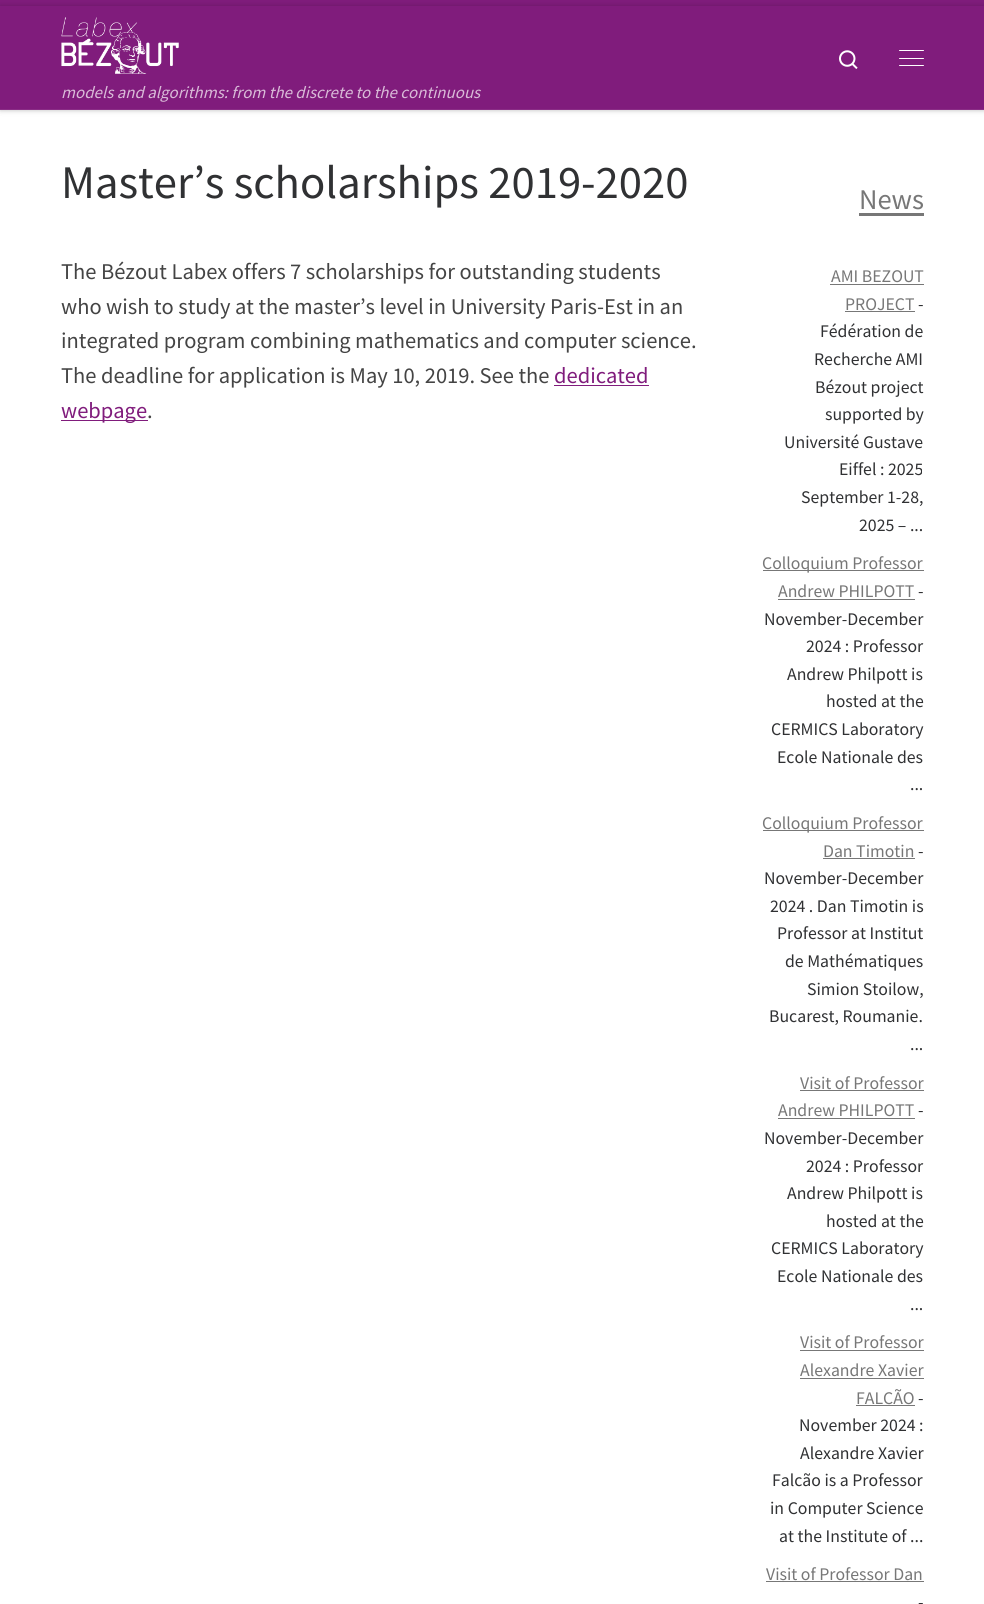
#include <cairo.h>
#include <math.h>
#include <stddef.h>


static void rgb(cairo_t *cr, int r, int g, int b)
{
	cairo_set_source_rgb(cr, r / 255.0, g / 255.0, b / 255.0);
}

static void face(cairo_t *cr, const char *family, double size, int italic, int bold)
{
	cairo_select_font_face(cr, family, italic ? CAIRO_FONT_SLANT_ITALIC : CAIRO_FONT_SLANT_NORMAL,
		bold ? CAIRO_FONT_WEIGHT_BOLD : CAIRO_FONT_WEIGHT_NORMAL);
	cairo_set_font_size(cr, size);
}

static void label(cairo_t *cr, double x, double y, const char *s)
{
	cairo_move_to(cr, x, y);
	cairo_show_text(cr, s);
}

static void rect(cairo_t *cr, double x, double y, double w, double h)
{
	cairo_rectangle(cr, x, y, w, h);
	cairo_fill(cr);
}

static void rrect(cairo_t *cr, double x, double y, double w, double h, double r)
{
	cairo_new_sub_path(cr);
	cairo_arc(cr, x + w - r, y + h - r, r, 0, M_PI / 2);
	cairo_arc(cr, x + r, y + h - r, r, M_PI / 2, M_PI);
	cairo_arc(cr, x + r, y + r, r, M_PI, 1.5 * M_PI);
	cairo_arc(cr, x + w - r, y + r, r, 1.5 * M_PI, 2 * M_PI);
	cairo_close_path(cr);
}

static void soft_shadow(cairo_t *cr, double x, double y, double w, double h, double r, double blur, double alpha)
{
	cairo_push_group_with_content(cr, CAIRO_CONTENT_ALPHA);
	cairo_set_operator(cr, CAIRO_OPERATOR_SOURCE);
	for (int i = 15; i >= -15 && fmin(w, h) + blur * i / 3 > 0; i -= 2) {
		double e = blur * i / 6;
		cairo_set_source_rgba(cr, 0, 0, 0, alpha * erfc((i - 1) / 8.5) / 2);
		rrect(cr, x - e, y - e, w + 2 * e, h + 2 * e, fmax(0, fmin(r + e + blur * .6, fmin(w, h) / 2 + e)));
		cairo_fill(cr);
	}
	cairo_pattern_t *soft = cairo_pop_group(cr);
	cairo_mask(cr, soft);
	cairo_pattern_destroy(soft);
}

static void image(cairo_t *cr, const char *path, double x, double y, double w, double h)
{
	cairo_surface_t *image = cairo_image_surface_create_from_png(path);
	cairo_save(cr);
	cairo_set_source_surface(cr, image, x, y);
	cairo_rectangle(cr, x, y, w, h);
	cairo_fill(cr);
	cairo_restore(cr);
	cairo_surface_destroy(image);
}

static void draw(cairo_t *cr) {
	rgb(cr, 255, 255, 255);
	cairo_paint(cr);
	rgb(cr, 102, 102, 102);
	soft_shadow(cr, 0, 3, 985, 108, 0, 1, 0.08);
	rgb(cr, 128, 28, 124);
	rect(cr, 0, 0, 984, 6);
	rgb(cr, 0, 0, 0);
	soft_shadow(cr, 0, 6, 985, 104, 0, 3, 0.2);
	rgb(cr, 128, 28, 124);
	rect(cr, 0, 6, 984, 103);
	image(cr, "image0.png", 839, 50, 19, 19);
	rgb(cr, 255, 255, 255);
	rrect(cr, 899, 50, 25, 1, 0.5);
	cairo_fill(cr);
	rrect(cr, 899, 58, 25, 1, 0.5);
	cairo_fill(cr);
	rrect(cr, 899, 65, 25, 1, 0.5);
	cairo_fill(cr);
	image(cr, "image1.png", 61, 17, 118, 57);
	face(cr, "Source Sans Pro", 16.9, 1, 0);
	rgb(cr, 217, 187, 216);
	label(cr, 61, 98, "models and algorithms: from the discrete to the continuous");
	rgb(cr, 138, 45, 134);
	rect(cr, 0, 109, 984, 1);
	face(cr, "Source Sans Pro", 46.7, 0, 0);
	rgb(cr, 48, 49, 51);
	label(cr, 61, 198, "Master’s scholarships 2019-2020");
	face(cr, "Source Sans Pro", 22.5, 0, 0);
	rgb(cr, 68, 68, 68);
	label(cr, 61, 279, "The Bézout Labex offers 7 scholarships for outstanding students");
	label(cr, 61, 314, "who wish to study at the master’s level in University Paris-Est in an");
	label(cr, 61, 348, "integrated program combining mathematics and computer science.");
	label(cr, 61, 383, "The deadline for application is May 10, 2019. See the");
	rgb(cr, 128, 28, 124);
	label(cr, 554, 383, "dedicated");
	rect(cr, 554, 385, 95, 1);
	rect(cr, 61, 420, 87, 1);
	label(cr, 61, 418, "webpage");
	rgb(cr, 68, 68, 68);
	label(cr, 147, 418, ".");
	face(cr, "Source Sans Pro", 28.5, 0, 0);
	rgb(cr, 119, 119, 119);
	label(cr, 859, 209, "News");
	rect(cr, 859, 213, 65, 3);
	face(cr, "Source Sans Pro", 17.75, 0, 0);
	label(cr, 831, 282, "AMI BEZOUT");
	rect(cr, 830, 284, 94, 1);
	label(cr, 845, 310, "PROJECT");
	rect(cr, 845, 311, 70, 1);
	rgb(cr, 48, 49, 51);
	label(cr, 918, 310, "-");
	label(cr, 820, 337, "Fédération de");
	label(cr, 814, 365, "Recherche AMI");
	label(cr, 815, 393, "Bézout project");
	label(cr, 825, 420, "supported by");
	label(cr, 784, 448, "Université Gustave");
	label(cr, 839, 475, "Eiffel : 2025");
	label(cr, 801, 503, "September 1-28,");
	label(cr, 859, 531, "2025 – ...");
	rgb(cr, 119, 119, 119);
	rect(cr, 763, 570, 161, 1);
	label(cr, 762, 569, "Colloquium Professor");
	label(cr, 778, 597, "Andrew PHILPOTT");
	rect(cr, 778, 599, 137, 1);
	rgb(cr, 48, 49, 51);
	label(cr, 918, 597, "-");
	label(cr, 764, 625, "November-December");
	label(cr, 806, 652, "2024 : Professor");
	label(cr, 787, 680, "Andrew Philpott is");
	label(cr, 826, 707, "hosted at the");
	label(cr, 771, 735, "CERMICS Laboratory");
	label(cr, 777, 763, "Ecole Nationale des");
	label(cr, 910, 790, "...");
	rgb(cr, 119, 119, 119);
	rect(cr, 763, 830, 161, 1);
	label(cr, 762, 829, "Colloquium Professor");
	label(cr, 823, 857, "Dan Timotin");
	rect(cr, 823, 858, 92, 1);
	rgb(cr, 48, 49, 51);
	label(cr, 918, 857, "-");
	label(cr, 764, 884, "November-December");
	label(cr, 770, 912, "2024 . Dan Timotin is");
	label(cr, 777, 939, "Professor at Institut");
	label(cr, 785, 967, "de Mathématiques");
	label(cr, 807, 995, "Simion Stoilow,");
	label(cr, 769, 1022, "Bucarest, Roumanie.");
	label(cr, 910, 1050, "...");
	rgb(cr, 119, 119, 119);
	label(cr, 800, 1089, "Visit of Professor");
	rect(cr, 800, 1090, 124, 1);
	label(cr, 778, 1116, "Andrew PHILPOTT");
	rect(cr, 778, 1118, 137, 1);
	rgb(cr, 48, 49, 51);
	label(cr, 918, 1116, "-");
	label(cr, 764, 1144, "November-December");
	label(cr, 806, 1172, "2024 : Professor");
	label(cr, 787, 1199, "Andrew Philpott is");
	label(cr, 826, 1227, "hosted at the");
	label(cr, 771, 1254, "CERMICS Laboratory");
	label(cr, 777, 1282, "Ecole Nationale des");
	label(cr, 910, 1310, "...");
	rgb(cr, 119, 119, 119);
	label(cr, 800, 1348, "Visit of Professor");
	rect(cr, 800, 1350, 124, 1);
	label(cr, 800, 1376, "Alexandre Xavier");
	rect(cr, 800, 1378, 124, 1);
	label(cr, 856, 1404, "FALCÃO");
	rect(cr, 856, 1405, 59, 1);
	rgb(cr, 48, 49, 51);
	label(cr, 918, 1404, "-");
	label(cr, 799, 1431, "November 2024 :");
	label(cr, 800, 1459, "Alexandre Xavier");
	label(cr, 772, 1486, "Falcão is a Professor");
	label(cr, 770, 1514, "in Computer Science");
	label(cr, 779, 1542, "at the Institute of ...");
	rgb(cr, 119, 119, 119);
	label(cr, 766, 1580, "Visit of Professor Dan");
	rect(cr, 766, 1581, 158, 1);
	rgb(cr, 48, 49, 51);
	label(cr, 918, 1608, "-");
}

int main(void) {
	cairo_surface_t *surface = cairo_image_surface_create(CAIRO_FORMAT_RGB24, 984, 1604);
	cairo_t *cr = cairo_create(surface);
	cairo_font_options_t *options = cairo_font_options_create();
	cairo_font_options_set_hint_metrics(options, CAIRO_HINT_METRICS_OFF);
	cairo_font_options_set_hint_style(options, CAIRO_HINT_STYLE_NONE);
	cairo_set_font_options(cr, options);
	cairo_set_miter_limit(cr, 4);
	draw(cr);
	cairo_surface_write_to_png(surface, "render.png");
	cairo_font_options_destroy(options);
	cairo_destroy(cr);
	cairo_surface_destroy(surface);
	return 0;
}
